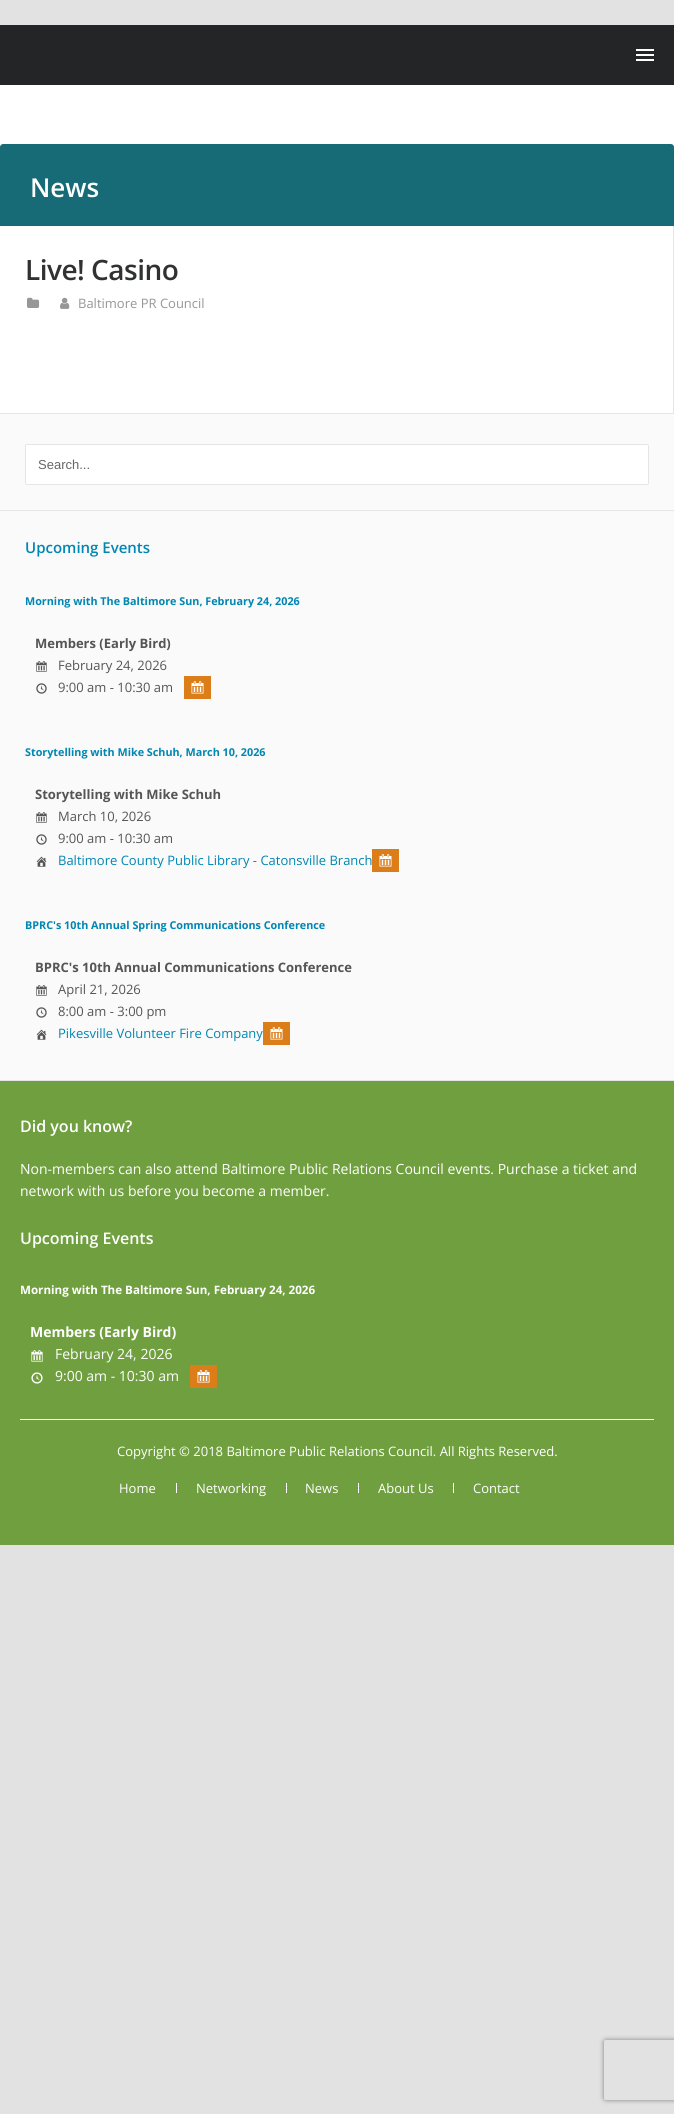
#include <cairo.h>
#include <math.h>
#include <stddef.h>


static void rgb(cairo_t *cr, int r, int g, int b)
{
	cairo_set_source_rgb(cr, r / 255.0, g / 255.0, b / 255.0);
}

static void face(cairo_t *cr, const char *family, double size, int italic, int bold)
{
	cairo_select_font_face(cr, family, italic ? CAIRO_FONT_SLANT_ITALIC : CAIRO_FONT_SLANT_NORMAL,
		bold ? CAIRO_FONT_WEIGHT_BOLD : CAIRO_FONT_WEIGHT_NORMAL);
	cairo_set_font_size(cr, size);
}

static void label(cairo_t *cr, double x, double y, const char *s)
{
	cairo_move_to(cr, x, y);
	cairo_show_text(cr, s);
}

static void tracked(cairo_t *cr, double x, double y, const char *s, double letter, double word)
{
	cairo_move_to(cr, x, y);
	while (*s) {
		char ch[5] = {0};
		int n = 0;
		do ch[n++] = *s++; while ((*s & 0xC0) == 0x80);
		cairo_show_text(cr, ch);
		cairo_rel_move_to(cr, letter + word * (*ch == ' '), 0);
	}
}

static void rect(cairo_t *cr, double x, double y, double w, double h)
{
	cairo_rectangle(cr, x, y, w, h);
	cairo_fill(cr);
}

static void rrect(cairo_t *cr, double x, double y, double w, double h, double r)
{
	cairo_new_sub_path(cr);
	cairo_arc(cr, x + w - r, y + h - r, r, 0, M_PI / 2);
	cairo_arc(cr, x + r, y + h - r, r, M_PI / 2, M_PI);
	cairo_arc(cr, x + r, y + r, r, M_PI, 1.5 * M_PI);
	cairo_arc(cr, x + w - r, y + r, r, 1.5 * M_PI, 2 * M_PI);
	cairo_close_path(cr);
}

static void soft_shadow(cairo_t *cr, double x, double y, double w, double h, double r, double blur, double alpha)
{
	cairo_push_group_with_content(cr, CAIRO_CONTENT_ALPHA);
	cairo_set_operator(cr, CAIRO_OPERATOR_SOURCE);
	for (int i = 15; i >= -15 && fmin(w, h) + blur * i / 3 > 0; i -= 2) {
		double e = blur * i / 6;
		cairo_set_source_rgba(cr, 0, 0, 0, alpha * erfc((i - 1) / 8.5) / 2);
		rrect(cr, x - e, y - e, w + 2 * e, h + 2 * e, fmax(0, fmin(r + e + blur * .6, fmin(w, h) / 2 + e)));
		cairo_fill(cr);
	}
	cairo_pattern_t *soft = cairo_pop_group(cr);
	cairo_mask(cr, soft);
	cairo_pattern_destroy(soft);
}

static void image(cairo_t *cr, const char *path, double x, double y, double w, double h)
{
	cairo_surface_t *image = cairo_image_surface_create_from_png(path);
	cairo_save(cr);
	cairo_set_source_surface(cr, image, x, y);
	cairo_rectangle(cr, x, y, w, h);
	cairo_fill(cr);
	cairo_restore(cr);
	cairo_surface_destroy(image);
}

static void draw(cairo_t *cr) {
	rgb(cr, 226, 226, 226);
	cairo_paint(cr);
	rgb(cr, 36, 37, 38);
	rect(cr, 0, 25, 674, 60);
	rgb(cr, 255, 255, 255);
	rect(cr, 636, 49, 18, 2);
	rect(cr, 636, 54, 18, 2);
	rect(cr, 636, 59, 18, 2);
	rect(cr, 0, 85, 674, 62);
	rgb(cr, 23, 107, 118);
	cairo_new_path(cr);
	cairo_move_to(cr, 3, 144);
	cairo_line_to(cr, 671, 144);
	cairo_curve_to(cr, 672.5, 144, 674, 145.5, 674, 147);
	cairo_line_to(cr, 674, 226);
	cairo_line_to(cr, 0, 226);
	cairo_line_to(cr, 0, 147);
	cairo_curve_to(cr, 0, 145.5, 1.5, 144, 3, 144);
	cairo_close_path(cr);
	cairo_fill(cr);
	face(cr, "Open Sans SemiBold", 26, 0, 0);
	rgb(cr, 255, 255, 255);
	label(cr, 30, 197, "News");
	rgb(cr, 250, 250, 250);
	rect(cr, 0, 414, 674, 666);
	rgb(cr, 255, 255, 255);
	rect(cr, 0, 226, 673, 187);
	rgb(cr, 229, 229, 229);
	rect(cr, 673, 226, 1, 188);
	rect(cr, 0, 413, 674, 1);
	face(cr, "Open Sans SemiBold", 28, 0, 0);
	rgb(cr, 48, 49, 51);
	tracked(cr, 25, 280, "Live! Casino", -0.5, 0);
	image(cr, "image0.png", 27, 297, 13, 11);
	image(cr, "image1.png", 60, 297, 10, 12);
	face(cr, "Open Sans", 13, 0, 0);
	rgb(cr, 150, 151, 153);
	label(cr, 78, 308, "Baltimore PR Council");
	rgb(cr, 229, 229, 229);
	rect(cr, 0, 510, 674, 1);
	rgb(cr, 255, 255, 255);
	rrect(cr, 25.5, 444.5, 623, 40, 1.5);
	cairo_fill_preserve(cr);
	rgb(cr, 229, 229, 229);
	cairo_set_line_width(cr, 1);
	cairo_stroke(cr);
	face(cr, "Liberation Sans", 13, 0, 0);
	rgb(cr, 102, 102, 102);
	label(cr, 38, 469, "Search...");
	rgb(cr, 229, 229, 229);
	rect(cr, 0, 1080, 674, 1);
	face(cr, "Open Sans SemiBold", 15, 0, 0);
	rgb(cr, 0, 134, 179);
	label(cr, 25, 553, "Upcoming Events");
	face(cr, "Open Sans", 10.8, 0, 1);
	label(cr, 25, 605, "Morning with The Baltimore Sun, February 24, 2026");
	face(cr, "Open Sans", 13, 0, 1);
	rgb(cr, 85, 85, 85);
	label(cr, 35, 648, "Members (Early Bird)");
	image(cr, "image2.png", 36, 661, 11, 11);
	face(cr, "Open Sans", 13, 0, 0);
	label(cr, 58, 670, "February 24, 2026");
	image(cr, "image3.png", 36, 683, 11, 11);
	label(cr, 58, 692, "9:00 am - 10:30 am");
	rgb(cr, 219, 125, 25);
	rect(cr, 184, 676, 27, 23);
	image(cr, "image4.png", 191, 681, 13, 13);
	face(cr, "Open Sans", 10.8, 0, 1);
	rgb(cr, 0, 134, 179);
	label(cr, 25, 756, "Storytelling with Mike Schuh, March 10, 2026");
	face(cr, "Open Sans", 13, 0, 1);
	rgb(cr, 85, 85, 85);
	label(cr, 35, 799, "Storytelling with Mike Schuh");
	image(cr, "image2.png", 36, 812, 11, 11);
	face(cr, "Open Sans", 13, 0, 0);
	label(cr, 58, 821, "March 10, 2026");
	image(cr, "image3.png", 36, 834, 11, 11);
	label(cr, 58, 843, "9:00 am - 10:30 am");
	image(cr, "image5.png", 36, 856, 11, 11);
	rgb(cr, 0, 134, 179);
	label(cr, 58, 865, "Baltimore County Public Library - Catonsville Branch");
	rgb(cr, 219, 125, 25);
	rect(cr, 372, 849, 27, 23);
	image(cr, "image4.png", 379, 854, 13, 13);
	face(cr, "Open Sans", 10.8, 0, 1);
	rgb(cr, 0, 134, 179);
	label(cr, 25, 929, "BPRC's 10th Annual Spring Communications Conference");
	face(cr, "Open Sans", 13, 0, 1);
	rgb(cr, 85, 85, 85);
	label(cr, 35, 972, "BPRC's 10th Annual Communications Conference");
	image(cr, "image2.png", 36, 985, 11, 11);
	face(cr, "Open Sans", 13, 0, 0);
	label(cr, 58, 994, "April 21, 2026");
	image(cr, "image3.png", 36, 1007, 11, 11);
	label(cr, 58, 1016, "8:00 am - 3:00 pm");
	image(cr, "image5.png", 36, 1029, 11, 11);
	rgb(cr, 0, 134, 179);
	label(cr, 58, 1038, "Pikesville Volunteer Fire Company");
	rgb(cr, 219, 125, 25);
	rect(cr, 263, 1022, 27, 23);
	image(cr, "image4.png", 270, 1027, 13, 13);
	rgb(cr, 112, 159, 63);
	rect(cr, 0, 1081, 674, 464);
	rgb(cr, 255, 255, 255);
	rect(cr, 20, 1419, 634, 1);
	face(cr, "Open Sans SemiBold", 16, 0, 0);
	label(cr, 20, 1132, "Did you know?");
	face(cr, "Open Sans", 14, 0, 0);
	label(cr, 20, 1174, "Non-members can also attend Baltimore Public Relations Council events. Purchase a ticket and");
	label(cr, 20, 1196, "network with us before you become a member.");
	face(cr, "Open Sans SemiBold", 16, 0, 0);
	label(cr, 20, 1244, "Upcoming Events");
	face(cr, "Open Sans", 11.6, 0, 1);
	label(cr, 20, 1294, "Morning with The Baltimore Sun, February 24, 2026");
	face(cr, "Open Sans", 14, 0, 1);
	label(cr, 30, 1337, "Members (Early Bird)");
	image(cr, "image6.png", 31, 1350, 12, 12);
	face(cr, "Open Sans", 14, 0, 0);
	label(cr, 55, 1359, "February 24, 2026");
	image(cr, "image7.png", 31, 1372, 12, 12);
	label(cr, 55, 1381, "9:00 am - 10:30 am");
	rgb(cr, 219, 125, 25);
	rect(cr, 190, 1365, 27, 23);
	image(cr, "image4.png", 197, 1370, 13, 13);
	face(cr, "Open Sans", 13, 0, 0);
	rgb(cr, 255, 255, 255);
	label(cr, 117, 1456, "Copyright © 2018 Baltimore Public Relations Council. All Rights Reserved.");
	rect(cr, 176, 1483, 1, 10);
	label(cr, 119, 1493, "Home");
	rect(cr, 286, 1483, 1, 10);
	label(cr, 196, 1493, "Networking");
	rect(cr, 358, 1483, 1, 10);
	label(cr, 305, 1493, "News");
	rect(cr, 453, 1483, 1, 10);
	label(cr, 378, 1493, "About Us");
	label(cr, 473, 1493, "Contact");
	cairo_save(cr);
	cairo_set_fill_rule(cr, CAIRO_FILL_RULE_EVEN_ODD);
	cairo_new_path(cr);
	cairo_move_to(cr, 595, 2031);
	cairo_line_to(cr, 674, 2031);
	cairo_line_to(cr, 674, 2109);
	cairo_line_to(cr, 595, 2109);
	cairo_close_path(cr);
	cairo_move_to(cr, 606, 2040);
	cairo_line_to(cr, 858, 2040);
	cairo_curve_to(cr, 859, 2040, 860, 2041, 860, 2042);
	cairo_line_to(cr, 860, 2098);
	cairo_curve_to(cr, 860, 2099, 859, 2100, 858, 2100);
	cairo_line_to(cr, 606, 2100);
	cairo_curve_to(cr, 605, 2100, 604, 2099, 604, 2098);
	cairo_line_to(cr, 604, 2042);
	cairo_curve_to(cr, 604, 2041, 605, 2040, 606, 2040);
	cairo_close_path(cr);
	cairo_clip(cr);
	rgb(cr, 128, 128, 128);
	soft_shadow(cr, 604, 2040, 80, 60, 2, 2.5, 1);
	cairo_restore(cr);
}

int main(void) {
	cairo_surface_t *surface = cairo_image_surface_create(CAIRO_FORMAT_RGB24, 674, 2114);
	cairo_t *cr = cairo_create(surface);
	cairo_font_options_t *options = cairo_font_options_create();
	cairo_font_options_set_hint_metrics(options, CAIRO_HINT_METRICS_OFF);
	cairo_font_options_set_hint_style(options, CAIRO_HINT_STYLE_NONE);
	cairo_set_font_options(cr, options);
	cairo_set_miter_limit(cr, 4);
	draw(cr);
	cairo_surface_write_to_png(surface, "render.png");
	cairo_font_options_destroy(options);
	cairo_destroy(cr);
	cairo_surface_destroy(surface);
	return 0;
}
